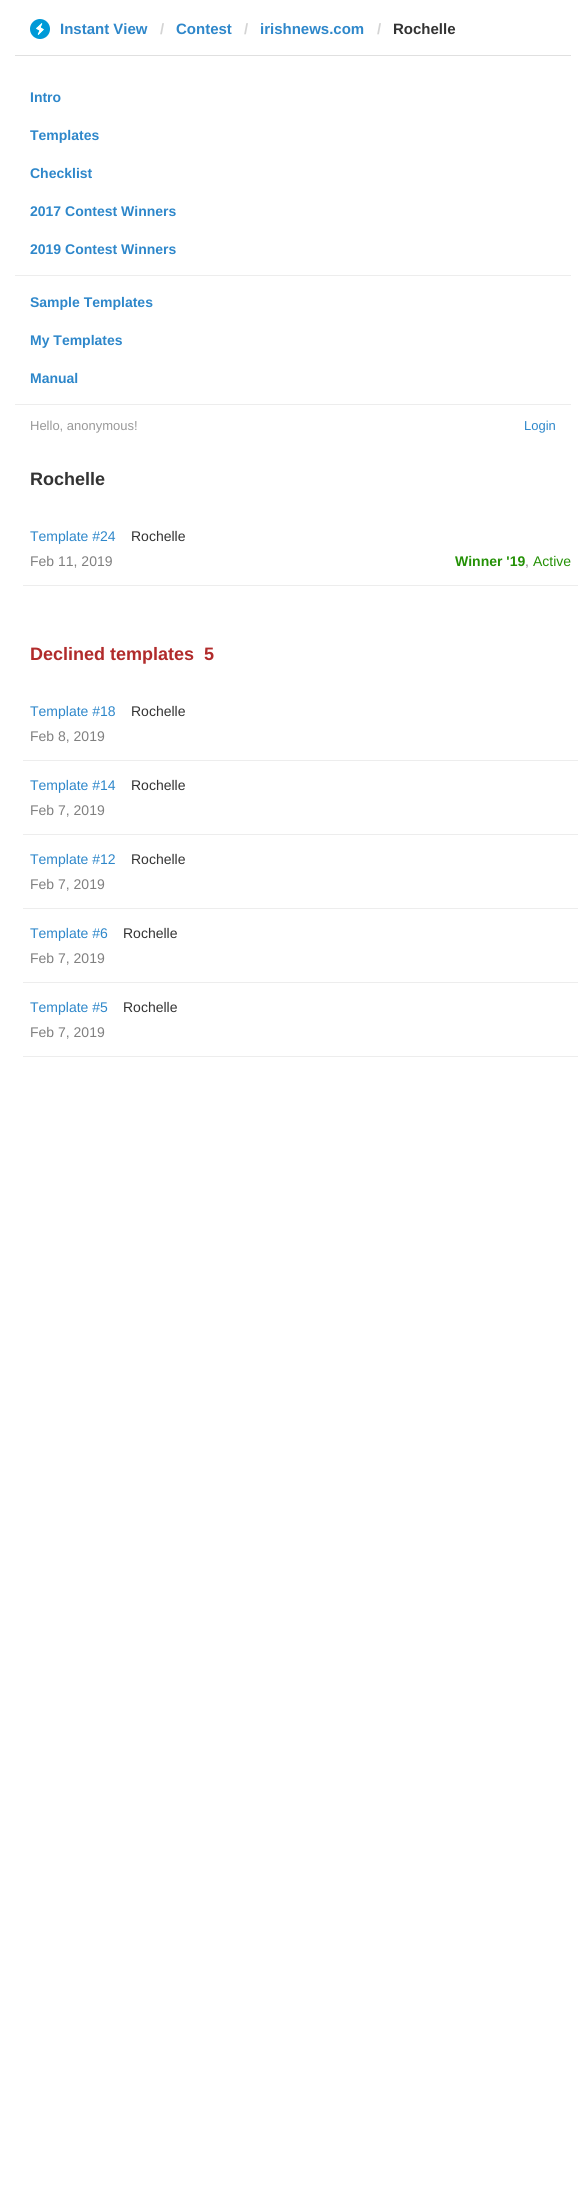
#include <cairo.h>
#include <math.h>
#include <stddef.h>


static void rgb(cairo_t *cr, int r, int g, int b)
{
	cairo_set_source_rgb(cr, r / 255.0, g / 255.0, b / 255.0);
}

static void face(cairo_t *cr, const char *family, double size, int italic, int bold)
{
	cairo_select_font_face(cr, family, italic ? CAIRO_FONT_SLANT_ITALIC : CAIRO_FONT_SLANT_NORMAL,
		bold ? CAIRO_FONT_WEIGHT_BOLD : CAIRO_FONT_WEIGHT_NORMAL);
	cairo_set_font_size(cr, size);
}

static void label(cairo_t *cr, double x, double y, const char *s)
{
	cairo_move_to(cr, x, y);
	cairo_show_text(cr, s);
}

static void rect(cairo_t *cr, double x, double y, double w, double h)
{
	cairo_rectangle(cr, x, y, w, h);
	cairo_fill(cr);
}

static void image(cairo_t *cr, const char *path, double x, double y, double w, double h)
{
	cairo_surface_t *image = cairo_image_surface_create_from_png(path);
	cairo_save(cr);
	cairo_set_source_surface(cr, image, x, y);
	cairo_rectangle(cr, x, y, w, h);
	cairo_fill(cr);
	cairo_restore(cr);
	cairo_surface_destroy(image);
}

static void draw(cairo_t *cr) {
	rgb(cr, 255, 255, 255);
	cairo_paint(cr);
	rgb(cr, 224, 224, 224);
	rect(cr, 15, 55, 556, 1);
	image(cr, "image0.png", 30, 19, 20, 20);
	face(cr, "Liberation Sans", 15, 0, 1);
	rgb(cr, 46, 135, 202);
	label(cr, 60, 34, "Instant View");
	rgb(cr, 212, 212, 212);
	label(cr, 160, 34, "/");
	rgb(cr, 46, 135, 202);
	label(cr, 176, 34, "Contest");
	rgb(cr, 212, 212, 212);
	label(cr, 244, 34, "/");
	rgb(cr, 46, 135, 202);
	label(cr, 260, 34, "irishnews.com");
	rgb(cr, 212, 212, 212);
	label(cr, 377, 34, "/");
	rgb(cr, 51, 51, 51);
	label(cr, 393, 34, "Rochelle");
	face(cr, "Liberation Sans", 14, 0, 1);
	rgb(cr, 46, 135, 202);
	label(cr, 30, 102, "Intro");
	label(cr, 30, 140, "Templates");
	label(cr, 30, 178, "Checklist");
	label(cr, 30, 216, "2017 Contest Winners");
	label(cr, 30, 254, "2019 Contest Winners");
	rgb(cr, 237, 237, 237);
	rect(cr, 15, 275, 556, 1);
	rgb(cr, 46, 135, 202);
	label(cr, 30, 307, "Sample Templates");
	label(cr, 30, 345, "My Templates");
	label(cr, 30, 383, "Manual");
	rgb(cr, 237, 237, 237);
	rect(cr, 15, 404, 556, 1);
	face(cr, "Liberation Sans", 13, 0, 0);
	rgb(cr, 153, 153, 153);
	label(cr, 30, 430, "Hello, anonymous!");
	rgb(cr, 46, 135, 202);
	label(cr, 524, 430, "Login");
	face(cr, "Liberation Sans", 18, 0, 1);
	rgb(cr, 51, 51, 51);
	label(cr, 30, 485, "Rochelle");
	rgb(cr, 237, 237, 237);
	rect(cr, 23, 585, 555, 1);
	face(cr, "Liberation Sans", 14, 0, 0);
	rgb(cr, 46, 135, 202);
	label(cr, 30, 541, "Template #24");
	rgb(cr, 51, 51, 51);
	label(cr, 131, 541, "Rochelle");
	rgb(cr, 128, 128, 128);
	label(cr, 30, 566, "Feb 11, 2019");
	face(cr, "Liberation Sans", 14, 0, 1);
	rgb(cr, 36, 145, 6);
	label(cr, 455, 566, "Winner '19");
	face(cr, "Liberation Sans", 14, 0, 0);
	rgb(cr, 128, 128, 128);
	label(cr, 525, 566, ",");
	rgb(cr, 36, 145, 6);
	label(cr, 533, 566, "Active");
	face(cr, "Liberation Sans", 18, 0, 1);
	rgb(cr, 177, 43, 43);
	label(cr, 30, 660, "Declined templates");
	label(cr, 204, 660, "5");
	rgb(cr, 237, 237, 237);
	rect(cr, 23, 760, 555, 1);
	face(cr, "Liberation Sans", 14, 0, 0);
	rgb(cr, 46, 135, 202);
	label(cr, 30, 716, "Template #18");
	rgb(cr, 51, 51, 51);
	label(cr, 131, 716, "Rochelle");
	rgb(cr, 128, 128, 128);
	label(cr, 30, 741, "Feb 8, 2019");
	rgb(cr, 237, 237, 237);
	rect(cr, 23, 834, 555, 1);
	rgb(cr, 46, 135, 202);
	label(cr, 30, 790, "Template #14");
	rgb(cr, 51, 51, 51);
	label(cr, 131, 790, "Rochelle");
	rgb(cr, 128, 128, 128);
	label(cr, 30, 815, "Feb 7, 2019");
	rgb(cr, 237, 237, 237);
	rect(cr, 23, 908, 555, 1);
	rgb(cr, 46, 135, 202);
	label(cr, 30, 864, "Template #12");
	rgb(cr, 51, 51, 51);
	label(cr, 131, 864, "Rochelle");
	rgb(cr, 128, 128, 128);
	label(cr, 30, 889, "Feb 7, 2019");
	rgb(cr, 237, 237, 237);
	rect(cr, 23, 982, 555, 1);
	rgb(cr, 46, 135, 202);
	label(cr, 30, 938, "Template #6");
	rgb(cr, 51, 51, 51);
	label(cr, 123, 938, "Rochelle");
	rgb(cr, 128, 128, 128);
	label(cr, 30, 963, "Feb 7, 2019");
	rgb(cr, 237, 237, 237);
	rect(cr, 23, 1056, 555, 1);
	rgb(cr, 46, 135, 202);
	label(cr, 30, 1012, "Template #5");
	rgb(cr, 51, 51, 51);
	label(cr, 123, 1012, "Rochelle");
	rgb(cr, 128, 128, 128);
	label(cr, 30, 1037, "Feb 7, 2019");
}

int main(void) {
	cairo_surface_t *surface = cairo_image_surface_create(CAIRO_FORMAT_RGB24, 586, 2195);
	cairo_t *cr = cairo_create(surface);
	cairo_font_options_t *options = cairo_font_options_create();
	cairo_font_options_set_hint_metrics(options, CAIRO_HINT_METRICS_OFF);
	cairo_font_options_set_hint_style(options, CAIRO_HINT_STYLE_NONE);
	cairo_set_font_options(cr, options);
	cairo_set_miter_limit(cr, 4);
	draw(cr);
	cairo_surface_write_to_png(surface, "render.png");
	cairo_font_options_destroy(options);
	cairo_destroy(cr);
	cairo_surface_destroy(surface);
	return 0;
}
